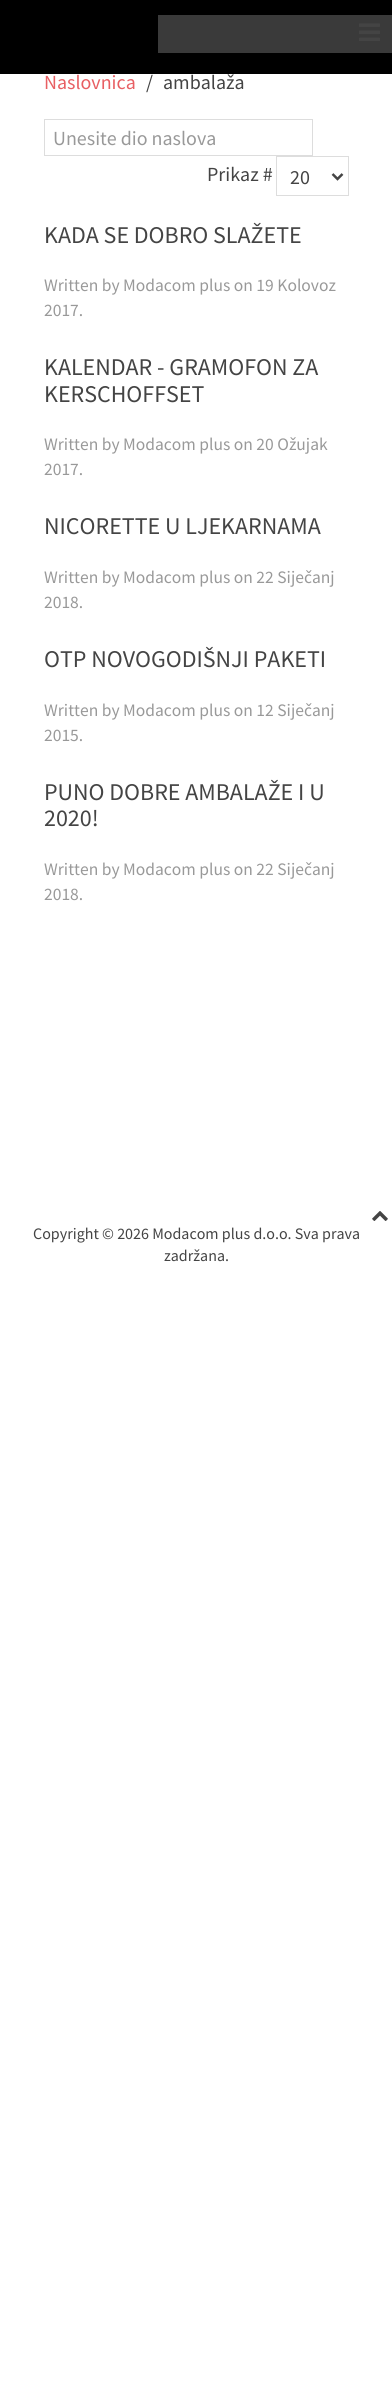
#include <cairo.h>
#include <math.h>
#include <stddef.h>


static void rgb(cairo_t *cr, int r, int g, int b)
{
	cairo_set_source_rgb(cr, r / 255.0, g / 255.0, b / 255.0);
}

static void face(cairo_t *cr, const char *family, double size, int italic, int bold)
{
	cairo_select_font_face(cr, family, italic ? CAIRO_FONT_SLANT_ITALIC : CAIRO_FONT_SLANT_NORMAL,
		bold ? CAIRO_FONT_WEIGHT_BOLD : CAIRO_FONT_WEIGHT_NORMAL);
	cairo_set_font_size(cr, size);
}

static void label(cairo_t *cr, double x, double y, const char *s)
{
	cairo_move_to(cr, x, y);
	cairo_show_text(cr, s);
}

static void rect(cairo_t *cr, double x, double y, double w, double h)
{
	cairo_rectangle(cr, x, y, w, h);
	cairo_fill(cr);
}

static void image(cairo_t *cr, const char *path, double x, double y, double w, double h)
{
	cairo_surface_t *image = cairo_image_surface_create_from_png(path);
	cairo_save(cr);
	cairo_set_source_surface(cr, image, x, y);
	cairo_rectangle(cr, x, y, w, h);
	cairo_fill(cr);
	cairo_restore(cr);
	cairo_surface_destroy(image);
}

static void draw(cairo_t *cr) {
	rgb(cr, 255, 255, 255);
	cairo_paint(cr);
	rgb(cr, 0, 0, 0);
	rect(cr, 0, 0, 392, 74);
	rgb(cr, 58, 58, 58);
	rect(cr, 158, 15, 234, 38);
	image(cr, "image0.png", 359, 23, 21, 18);
	face(cr, "Source Sans Pro", 20, 0, 0);
	rgb(cr, 232, 95, 99);
	label(cr, 44, 89, "Naslovnica");
	rgb(cr, 68, 68, 68);
	label(cr, 146, 89, "/");
	label(cr, 163, 89, "ambalaža");
	cairo_rectangle(cr, 44.5, 119.5, 268, 36);
	rgb(cr, 221, 221, 221);
	cairo_set_line_width(cr, 1);
	cairo_stroke(cr);
	rgb(cr, 153, 153, 153);
	label(cr, 53, 145, "Unesite dio naslova");
	rgb(cr, 68, 68, 68);
	label(cr, 207, 181, "Prikaz #");
	cairo_rectangle(cr, 276.5, 156.5, 72, 39);
	rgb(cr, 221, 221, 221);
	cairo_stroke(cr);
	cairo_new_path(cr);
	cairo_move_to(cr, 332.5, 174);
	cairo_line_to(cr, 337.5, 179);
	cairo_line_to(cr, 342.5, 174);
	rgb(cr, 68, 68, 68);
	cairo_set_line_width(cr, 2.5);
	cairo_stroke(cr);
	label(cr, 290, 184, "20");
	face(cr, "Source Sans Pro", 24, 0, 0);
	label(cr, 44, 243, "KADA SE DOBRO SLAŽETE");
	face(cr, "Source Sans Pro", 17.5, 0, 0);
	rgb(cr, 153, 153, 153);
	label(cr, 44, 291, "Written by Modacom plus on 19 Kolovoz");
	label(cr, 44, 316, "2017.");
	face(cr, "Source Sans Pro", 24, 0, 0);
	rgb(cr, 68, 68, 68);
	label(cr, 44, 375, "KALENDAR - GRAMOFON ZA");
	label(cr, 44, 402, "KERSCHOFFSET");
	face(cr, "Source Sans Pro", 17.5, 0, 0);
	rgb(cr, 153, 153, 153);
	label(cr, 44, 450, "Written by Modacom plus on 20 Ožujak");
	label(cr, 44, 475, "2017.");
	face(cr, "Source Sans Pro", 24, 0, 0);
	rgb(cr, 68, 68, 68);
	label(cr, 44, 534, "NICORETTE U LJEKARNAMA");
	face(cr, "Source Sans Pro", 17.5, 0, 0);
	rgb(cr, 153, 153, 153);
	label(cr, 44, 583, "Written by Modacom plus on 22 Siječanj");
	label(cr, 44, 608, "2018.");
	face(cr, "Source Sans Pro", 24, 0, 0);
	rgb(cr, 68, 68, 68);
	label(cr, 44, 667, "OTP NOVOGODIŠNJI PAKETI");
	face(cr, "Source Sans Pro", 17.5, 0, 0);
	rgb(cr, 153, 153, 153);
	label(cr, 44, 716, "Written by Modacom plus on 12 Siječanj");
	label(cr, 44, 741, "2015.");
	face(cr, "Source Sans Pro", 24, 0, 0);
	rgb(cr, 68, 68, 68);
	label(cr, 44, 800, "PUNO DOBRE AMBALAŽE I U");
	label(cr, 44, 826, "2020!");
	face(cr, "Source Sans Pro", 17.5, 0, 0);
	rgb(cr, 153, 153, 153);
	label(cr, 44, 875, "Written by Modacom plus on 22 Siječanj");
	label(cr, 44, 900, "2018.");
	image(cr, "image1.png", 372, 1211, 16, 10);
	face(cr, "Source Sans Pro", 16, 0, 0);
	rgb(cr, 68, 68, 68);
	label(cr, 33, 1239, "Copyright © 2026 Modacom plus d.o.o. Sva prava");
	label(cr, 164, 1261, "zadržana.");
}

int main(void) {
	cairo_surface_t *surface = cairo_image_surface_create(CAIRO_FORMAT_RGB24, 392, 2408);
	cairo_t *cr = cairo_create(surface);
	cairo_font_options_t *options = cairo_font_options_create();
	cairo_font_options_set_hint_metrics(options, CAIRO_HINT_METRICS_OFF);
	cairo_font_options_set_hint_style(options, CAIRO_HINT_STYLE_NONE);
	cairo_set_font_options(cr, options);
	cairo_set_miter_limit(cr, 4);
	draw(cr);
	cairo_surface_write_to_png(surface, "render.png");
	cairo_font_options_destroy(options);
	cairo_destroy(cr);
	cairo_surface_destroy(surface);
	return 0;
}
